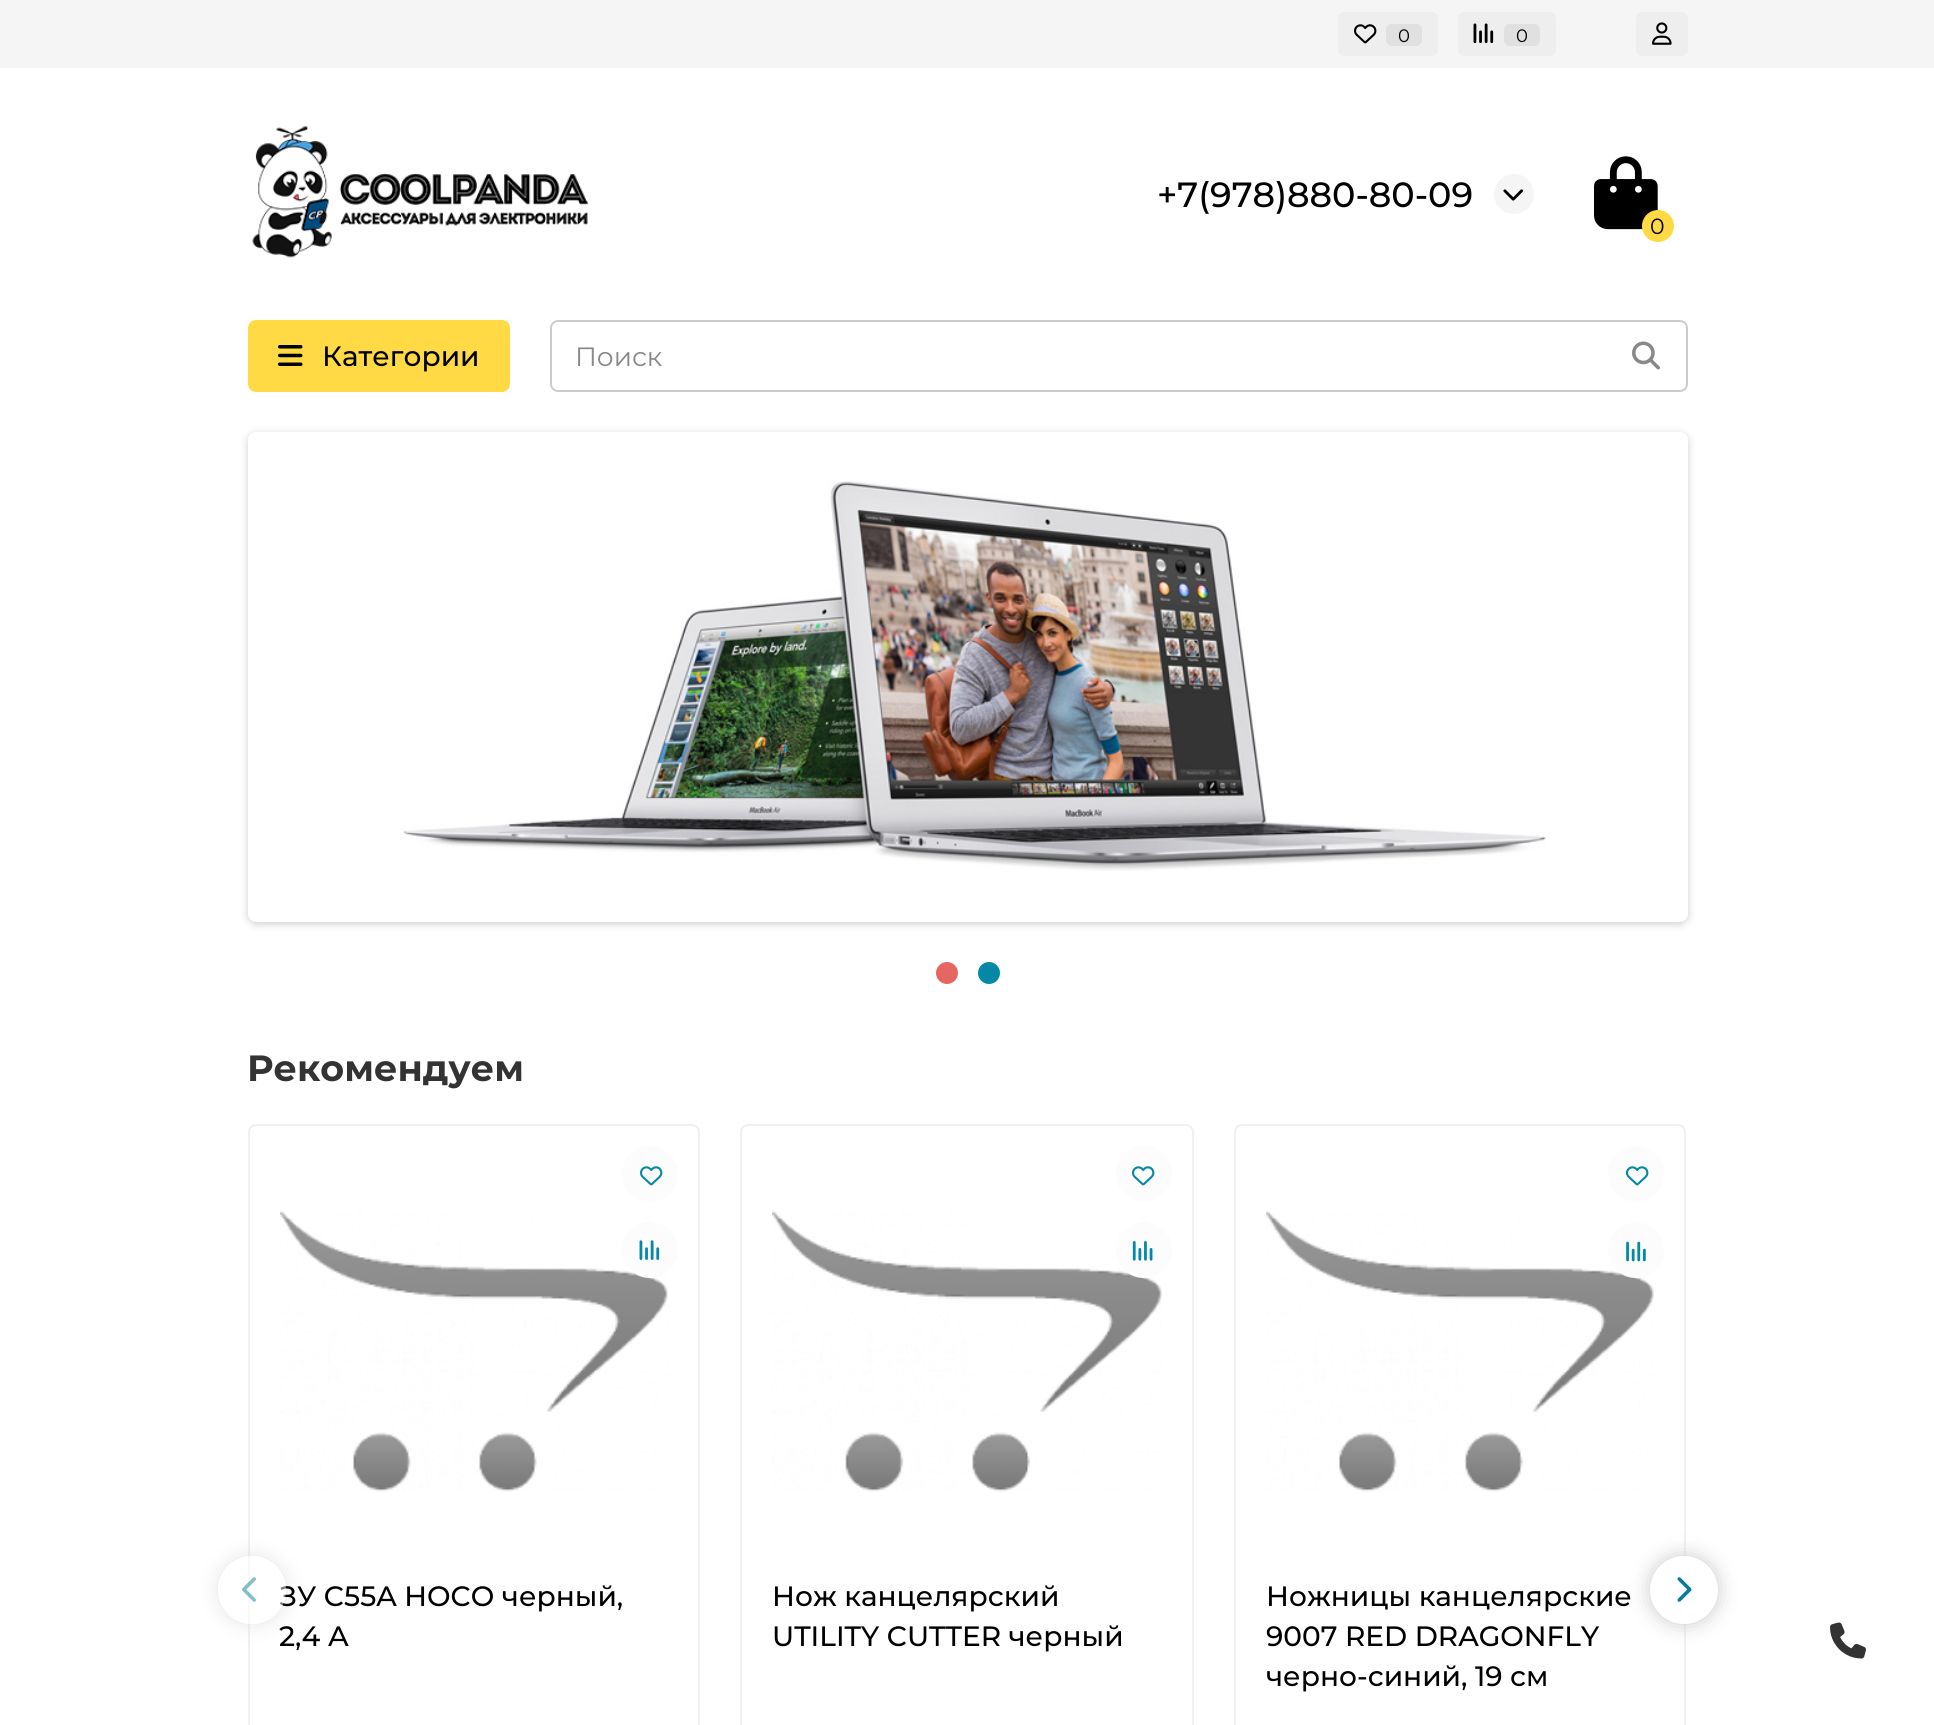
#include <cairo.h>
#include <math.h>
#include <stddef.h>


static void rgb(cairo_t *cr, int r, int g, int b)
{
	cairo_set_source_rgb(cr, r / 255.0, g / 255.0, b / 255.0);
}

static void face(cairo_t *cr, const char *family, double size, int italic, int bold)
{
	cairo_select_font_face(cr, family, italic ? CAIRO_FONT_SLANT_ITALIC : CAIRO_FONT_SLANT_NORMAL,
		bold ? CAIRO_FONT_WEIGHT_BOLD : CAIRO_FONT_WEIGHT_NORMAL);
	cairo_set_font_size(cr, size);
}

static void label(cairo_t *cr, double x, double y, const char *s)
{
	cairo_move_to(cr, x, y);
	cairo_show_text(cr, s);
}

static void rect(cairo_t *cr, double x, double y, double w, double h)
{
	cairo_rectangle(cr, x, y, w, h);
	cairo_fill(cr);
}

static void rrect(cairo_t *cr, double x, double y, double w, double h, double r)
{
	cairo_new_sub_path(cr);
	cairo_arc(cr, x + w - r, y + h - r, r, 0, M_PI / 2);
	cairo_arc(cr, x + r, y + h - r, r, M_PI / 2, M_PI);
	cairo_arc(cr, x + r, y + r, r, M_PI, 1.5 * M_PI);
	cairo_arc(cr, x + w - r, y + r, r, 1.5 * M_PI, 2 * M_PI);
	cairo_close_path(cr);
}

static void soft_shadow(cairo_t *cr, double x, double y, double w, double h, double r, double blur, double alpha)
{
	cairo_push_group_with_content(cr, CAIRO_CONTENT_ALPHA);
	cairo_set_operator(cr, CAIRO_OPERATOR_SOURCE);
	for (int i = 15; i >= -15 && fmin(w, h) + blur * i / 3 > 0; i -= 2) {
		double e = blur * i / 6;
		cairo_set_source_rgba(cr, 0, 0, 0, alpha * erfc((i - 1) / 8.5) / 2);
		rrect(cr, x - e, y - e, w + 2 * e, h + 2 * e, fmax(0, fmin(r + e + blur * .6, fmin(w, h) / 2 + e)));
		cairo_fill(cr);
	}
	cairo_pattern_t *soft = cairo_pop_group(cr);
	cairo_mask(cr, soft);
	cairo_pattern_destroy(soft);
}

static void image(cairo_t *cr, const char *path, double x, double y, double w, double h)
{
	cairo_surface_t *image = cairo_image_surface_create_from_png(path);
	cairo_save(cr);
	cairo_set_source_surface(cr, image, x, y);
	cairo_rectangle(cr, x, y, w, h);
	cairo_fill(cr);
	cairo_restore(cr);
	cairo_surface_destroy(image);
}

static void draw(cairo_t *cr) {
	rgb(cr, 255, 255, 255);
	cairo_paint(cr);
	rgb(cr, 245, 245, 245);
	rect(cr, 0, 0, 1934, 68);
	rgb(cr, 238, 238, 238);
	rrect(cr, 1338, 12, 100, 44, 6);
	cairo_fill(cr);
	image(cr, "image0.png", 1354, 24, 23, 20);
	rgb(cr, 224, 224, 224);
	rrect(cr, 1386, 24, 36, 22, 6);
	cairo_fill(cr);
	face(cr, "Montserrat", 18, 0, 0);
	rgb(cr, 0, 0, 0);
	label(cr, 1398, 42, "0");
	rgb(cr, 238, 238, 238);
	rrect(cr, 1458, 12, 98, 44, 6);
	cairo_fill(cr);
	image(cr, "image1.png", 1473, 23, 21, 21);
	rgb(cr, 224, 224, 224);
	rrect(cr, 1504, 24, 36, 22, 6);
	cairo_fill(cr);
	rgb(cr, 0, 0, 0);
	label(cr, 1516, 42, "0");
	rgb(cr, 238, 238, 238);
	rrect(cr, 1636, 12, 52, 44, 6);
	cairo_fill(cr);
	image(cr, "image2.png", 1652, 22, 20, 23);
	image(cr, "image3.png", 252, 126, 336, 132);
	face(cr, "Montserrat Medium", 35, 0, 0);
	rgb(cr, 0, 0, 0);
	label(cr, 1157, 207, "+7(978)880-80-09");
	rgb(cr, 245, 245, 245);
	cairo_new_path(cr);
	cairo_arc(cr, 1514, 194, 20, 0, 2 * M_PI);
	cairo_fill(cr);
	image(cr, "image4.png", 1503, 189, 20, 12);
	image(cr, "image5.png", 1594, 156, 64, 74);
	rgb(cr, 255, 218, 68);
	cairo_arc(cr, 1658, 226, 16, 0, 2 * M_PI);
	cairo_fill(cr);
	face(cr, "Montserrat", 22, 0, 0);
	rgb(cr, 0, 0, 0);
	label(cr, 1650, 234, "0");
	rgb(cr, 255, 218, 68);
	rrect(cr, 248, 320, 262, 72, 8);
	cairo_fill(cr);
	image(cr, "image6.png", 278, 345, 25, 21);
	face(cr, "Montserrat Medium", 28, 0, 0);
	rgb(cr, 0, 0, 0);
	label(cr, 322, 366, "Категории");
	rrect(cr, 551, 321, 1136, 70, 7);
	rgb(cr, 204, 204, 204);
	cairo_stroke(cr);
	face(cr, "Montserrat", 26.5, 0, 0);
	rgb(cr, 136, 136, 136);
	label(cr, 575, 366, "Поиск");
	image(cr, "image7.png", 1632, 341, 28, 29);
	rgb(cr, 0, 0, 0);
	soft_shadow(cr, 248, 434, 1440, 490, 8, 4, 0.2);
	rgb(cr, 255, 255, 255);
	rrect(cr, 252, 436, 1432, 482, 4);
	cairo_fill_preserve(cr);
	cairo_set_line_width(cr, 8);
	cairo_stroke(cr);
	image(cr, "image8.png", 403, 481, 1143, 390);
	rgb(cr, 230, 103, 97);
	cairo_arc(cr, 947, 973, 11, 0, 2 * M_PI);
	cairo_fill(cr);
	rgb(cr, 5, 136, 166);
	cairo_arc(cr, 989, 973, 11, 0, 2 * M_PI);
	cairo_fill(cr);
	face(cr, "Montserrat", 36.5, 0, 1);
	rgb(cr, 51, 51, 51);
	label(cr, 247, 1081, "Рекомендуем");
	rrect(cr, 249, 1125, 450, 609, 7);
	rgb(cr, 240, 240, 240);
	cairo_set_line_width(cr, 2);
	cairo_stroke(cr);
	cairo_save(cr);
	cairo_set_fill_rule(cr, CAIRO_FILL_RULE_EVEN_ODD);
	cairo_new_path(cr);
	cairo_move_to(cr, 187, 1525);
	cairo_line_to(cr, 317, 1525);
	cairo_line_to(cr, 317, 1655);
	cairo_line_to(cr, 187, 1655);
	cairo_close_path(cr);
	cairo_move_to(cr, 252, 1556);
	cairo_curve_to(cr, 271, 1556, 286, 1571, 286, 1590);
	cairo_curve_to(cr, 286, 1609, 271, 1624, 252, 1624);
	cairo_curve_to(cr, 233, 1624, 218, 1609, 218, 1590);
	cairo_curve_to(cr, 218, 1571, 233, 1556, 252, 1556);
	cairo_close_path(cr);
	cairo_clip(cr);
	rgb(cr, 204, 204, 204);
	soft_shadow(cr, 218, 1556, 68, 68, 34, 10, 0.5);
	cairo_restore(cr);
	face(cr, "Montserrat Medium", 28, 0, 0);
	rgb(cr, 0, 0, 0);
	label(cr, 279, 1606, "ЗУ C55A HOCO черный,");
	cairo_set_source_rgba(cr, 1, 1, 1, 0.5);
	cairo_new_path(cr);
	cairo_arc(cr, 252, 1590, 34, 0, 2 * M_PI);
	cairo_fill(cr);
	image(cr, "image9.png", 242, 1577, 14, 25);
	rrect(cr, 1235, 1125, 450, 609, 7);
	rgb(cr, 240, 240, 240);
	cairo_stroke(cr);
	rgb(cr, 204, 204, 204);
	soft_shadow(cr, 1650, 1556, 68, 68, 34, 10, 1);
	rgb(cr, 255, 255, 255);
	cairo_arc(cr, 1684, 1590, 34, 0, 2 * M_PI);
	cairo_fill(cr);
	image(cr, "image10.png", 1677, 1577, 15, 25);
	image(cr, "image11.png", 280, 1210, 388, 282);
	rgb(cr, 252, 252, 252);
	cairo_arc(cr, 650, 1174, 28, 0, 2 * M_PI);
	cairo_fill(cr);
	image(cr, "image12.png", 640, 1166, 23, 20);
	cairo_arc(cr, 650, 1250, 28, 0, 2 * M_PI);
	cairo_fill(cr);
	image(cr, "image13.png", 639, 1240, 21, 20);
	rgb(cr, 0, 0, 0);
	label(cr, 279, 1646, "2,4 А");
	rrect(cr, 741, 1125, 452, 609, 7);
	rgb(cr, 240, 240, 240);
	cairo_stroke(cr);
	image(cr, "image14.png", 772, 1210, 390, 282);
	rgb(cr, 252, 252, 252);
	cairo_arc(cr, 1144, 1174, 28, 0, 2 * M_PI);
	cairo_fill(cr);
	image(cr, "image12.png", 1132, 1166, 23, 20);
	cairo_arc(cr, 1144, 1250, 28, 0, 2 * M_PI);
	cairo_fill(cr);
	image(cr, "image15.png", 1132, 1241, 21, 20);
	rgb(cr, 0, 0, 0);
	label(cr, 772, 1606, "Нож канцелярский");
	label(cr, 772, 1646, "UTILITY CUTTER черный");
	image(cr, "image11.png", 1266, 1210, 388, 282);
	rgb(cr, 252, 252, 252);
	cairo_arc(cr, 1636, 1174, 28, 0, 2 * M_PI);
	cairo_fill(cr);
	image(cr, "image12.png", 1626, 1166, 23, 20);
	cairo_arc(cr, 1636, 1250, 28, 0, 2 * M_PI);
	cairo_fill(cr);
	image(cr, "image16.png", 1626, 1241, 20, 21);
	rgb(cr, 0, 0, 0);
	label(cr, 1266, 1606, "Ножницы канцелярские");
	label(cr, 1266, 1646, "9007 RED DRAGONFLY");
	label(cr, 1266, 1686, "черно-синий, 19 см");
	image(cr, "image17.png", 1830, 1622, 36, 37);
}

int main(void) {
	cairo_surface_t *surface = cairo_image_surface_create(CAIRO_FORMAT_RGB24, 1934, 1725);
	cairo_t *cr = cairo_create(surface);
	cairo_font_options_t *options = cairo_font_options_create();
	cairo_font_options_set_hint_metrics(options, CAIRO_HINT_METRICS_OFF);
	cairo_font_options_set_hint_style(options, CAIRO_HINT_STYLE_NONE);
	cairo_set_font_options(cr, options);
	cairo_set_miter_limit(cr, 4);
	draw(cr);
	cairo_surface_write_to_png(surface, "render.png");
	cairo_font_options_destroy(options);
	cairo_destroy(cr);
	cairo_surface_destroy(surface);
	return 0;
}
